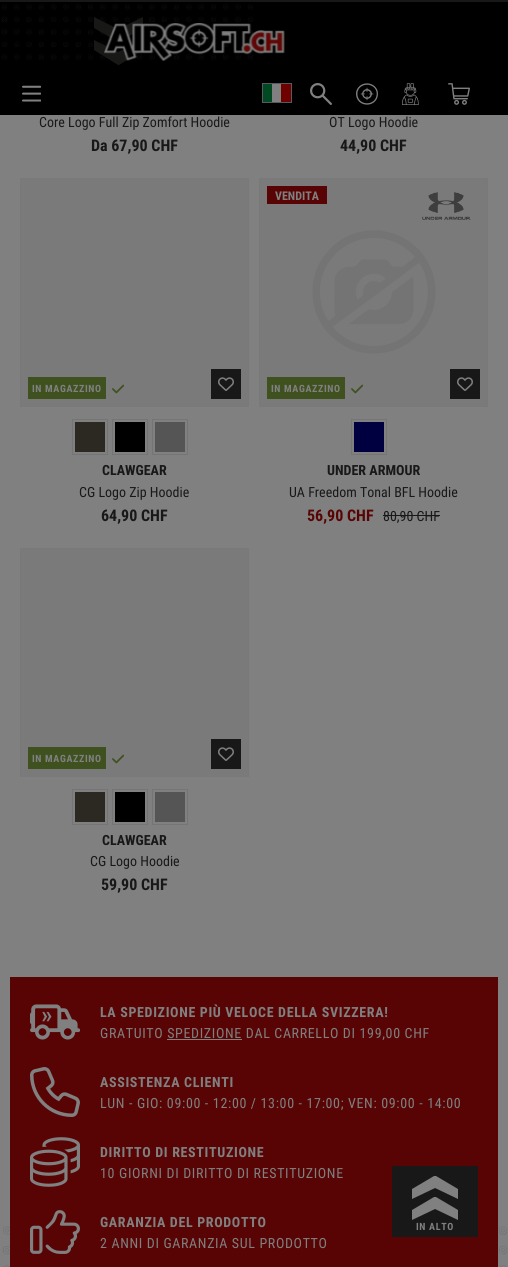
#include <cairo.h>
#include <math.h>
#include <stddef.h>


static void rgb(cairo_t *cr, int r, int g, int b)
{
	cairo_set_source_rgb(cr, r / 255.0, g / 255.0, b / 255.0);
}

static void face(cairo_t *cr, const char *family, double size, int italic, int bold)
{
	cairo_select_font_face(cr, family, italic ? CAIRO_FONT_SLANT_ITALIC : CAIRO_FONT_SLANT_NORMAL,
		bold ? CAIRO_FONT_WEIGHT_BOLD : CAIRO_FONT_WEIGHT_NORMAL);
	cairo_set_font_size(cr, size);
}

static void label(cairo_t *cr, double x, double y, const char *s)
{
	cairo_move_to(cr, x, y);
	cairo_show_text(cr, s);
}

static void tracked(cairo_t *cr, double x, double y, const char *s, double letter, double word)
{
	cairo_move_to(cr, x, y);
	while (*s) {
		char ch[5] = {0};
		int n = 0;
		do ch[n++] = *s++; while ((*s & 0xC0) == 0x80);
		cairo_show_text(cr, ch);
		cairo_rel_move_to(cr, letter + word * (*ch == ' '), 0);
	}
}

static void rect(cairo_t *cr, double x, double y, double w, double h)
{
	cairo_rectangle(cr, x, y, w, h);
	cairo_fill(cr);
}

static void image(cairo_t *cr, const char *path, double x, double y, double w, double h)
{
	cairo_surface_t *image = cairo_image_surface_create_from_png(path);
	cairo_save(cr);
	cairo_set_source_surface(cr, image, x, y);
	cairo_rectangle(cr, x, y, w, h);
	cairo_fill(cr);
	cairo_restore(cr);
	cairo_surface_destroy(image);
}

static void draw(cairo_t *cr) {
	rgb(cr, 128, 128, 128);
	cairo_paint(cr);
	rgb(cr, 0, 0, 0);
	rect(cr, 0, 2, 508, 113);
	rgb(cr, 24, 24, 24);
	rect(cr, 0, 0, 508, 2);
	image(cr, "image0.png", 1, 4, 252, 56);
	rgb(cr, 24, 24, 23);
	cairo_new_path(cr);
	cairo_move_to(cr, 143, 28);
	cairo_line_to(cr, 119, 42);
	cairo_line_to(cr, 118, 42);
	cairo_line_to(cr, 94, 28);
	cairo_line_to(cr, 94, 17);
	cairo_line_to(cr, 118, 29);
	cairo_line_to(cr, 143, 17);
	cairo_close_path(cr);
	cairo_move_to(cr, 143, 50);
	cairo_line_to(cr, 119, 65);
	cairo_line_to(cr, 118, 65);
	cairo_line_to(cr, 94, 50);
	cairo_line_to(cr, 94, 40);
	cairo_line_to(cr, 118, 52);
	cairo_line_to(cr, 143, 40);
	cairo_close_path(cr);
	cairo_fill(cr);
	image(cr, "image1.png", 104, 23, 181, 38);
	image(cr, "image2.png", 22, 85, 19, 17);
	rgb(cr, 0, 73, 35);
	rect(cr, 263, 84, 9, 18);
	rgb(cr, 128, 128, 128);
	rect(cr, 272, 84, 9, 18);
	rgb(cr, 111, 0, 0);
	rect(cr, 281, 84, 10, 18);
	cairo_rectangle(cr, 262.5, 83.5, 29, 19);
	rgb(cr, 87, 91, 95);
	cairo_set_line_width(cr, 1);
	cairo_stroke(cr);
	image(cr, "image3.png", 310, 83, 22, 22);
	image(cr, "image4.png", 356, 83, 22, 22);
	image(cr, "image5.png", 402, 83, 17, 22);
	image(cr, "image6.png", 448, 83, 22, 22);
	image(cr, "image7.png", 2, 1226, 506, 41);
	face(cr, "Roboto Condensed", 14, 0, 0);
	rgb(cr, 24, 24, 24);
	label(cr, 39, 127, "Core Logo Full Zip Zomfort Hoodie");
	face(cr, "Roboto Condensed", 16, 0, 1);
	label(cr, 91, 151, "Da 67,90 CHF");
	face(cr, "Roboto Condensed", 14, 0, 0);
	label(cr, 329, 127, "OT Logo Hoodie");
	face(cr, "Roboto Condensed", 16, 0, 1);
	label(cr, 340, 151, "44,90 CHF");
	rgb(cr, 122, 122, 122);
	cairo_rectangle(cr, 20.5, 178.5, 228, 228);
	cairo_fill_preserve(cr);
	rgb(cr, 121, 121, 121);
	cairo_stroke(cr);
	rgb(cr, 64, 81, 32);
	rect(cr, 28, 377, 78, 22);
	face(cr, "Roboto Condensed", 10, 0, 1);
	rgb(cr, 128, 128, 128);
	tracked(cr, 32, 392, "IN MAGAZZINO", 0.65, 0);
	image(cr, "image8.png", 112, 384, 12, 10);
	rgb(cr, 24, 24, 24);
	rect(cr, 211, 369, 30, 30);
	image(cr, "image9.png", 218, 377, 16, 14);
	rgb(cr, 44, 40, 34);
	rect(cr, 75, 422, 30, 30);
	cairo_rectangle(cr, 72.5, 419.5, 35, 35);
	rgb(cr, 117, 117, 117);
	cairo_stroke(cr);
	rgb(cr, 0, 0, 0);
	rect(cr, 115, 422, 30, 30);
	cairo_rectangle(cr, 112.5, 419.5, 35, 35);
	rgb(cr, 117, 117, 117);
	cairo_stroke(cr);
	rgb(cr, 85, 85, 85);
	rect(cr, 155, 422, 30, 30);
	cairo_rectangle(cr, 152.5, 419.5, 35, 35);
	rgb(cr, 117, 117, 117);
	cairo_stroke(cr);
	face(cr, "Roboto Condensed", 14, 0, 1);
	rgb(cr, 24, 24, 24);
	label(cr, 102, 475, "CLAWGEAR");
	face(cr, "Roboto Condensed", 14, 0, 0);
	label(cr, 79, 497, "CG Logo Zip Hoodie");
	face(cr, "Roboto Condensed", 16, 0, 1);
	label(cr, 101, 521, "64,90 CHF");
	rgb(cr, 122, 122, 122);
	cairo_rectangle(cr, 259.5, 178.5, 228, 228);
	cairo_fill_preserve(cr);
	rgb(cr, 121, 121, 121);
	cairo_stroke(cr);
	image(cr, "image10.png", 312, 230, 124, 124);
	rgb(cr, 88, 4, 4);
	rect(cr, 267, 186, 60, 18);
	face(cr, "Roboto Condensed", 12, 0, 1);
	rgb(cr, 128, 128, 128);
	label(cr, 275, 200, "VENDITA");
	image(cr, "image11.png", 422, 192, 49, 28);
	rgb(cr, 64, 81, 32);
	rect(cr, 267, 377, 78, 22);
	face(cr, "Roboto Condensed", 10, 0, 1);
	rgb(cr, 128, 128, 128);
	tracked(cr, 271, 392, "IN MAGAZZINO", 0.65, 0);
	image(cr, "image8.png", 351, 384, 12, 10);
	rgb(cr, 24, 24, 24);
	rect(cr, 450, 369, 30, 30);
	image(cr, "image9.png", 457, 377, 16, 14);
	rgb(cr, 0, 0, 64);
	rect(cr, 354, 422, 30, 30);
	cairo_rectangle(cr, 351.5, 419.5, 35, 35);
	rgb(cr, 117, 117, 117);
	cairo_stroke(cr);
	face(cr, "Roboto Condensed", 14, 0, 1);
	rgb(cr, 24, 24, 24);
	label(cr, 327, 475, "UNDER ARMOUR");
	face(cr, "Roboto Condensed", 14, 0, 0);
	label(cr, 289, 497, "UA Freedom Tonal BFL Hoodie");
	face(cr, "Roboto Condensed", 16, 0, 1);
	rgb(cr, 88, 4, 4);
	label(cr, 307, 521, "56,90 CHF");
	face(cr, "Roboto Condensed", 14, 0, 0);
	rgb(cr, 24, 24, 24);
	label(cr, 383, 521, "80,90 CHF");
	rect(cr, 383, 515, 57, 1);
	rgb(cr, 122, 122, 122);
	cairo_rectangle(cr, 20.5, 548.5, 228, 228);
	cairo_fill_preserve(cr);
	rgb(cr, 121, 121, 121);
	cairo_stroke(cr);
	rgb(cr, 64, 81, 32);
	rect(cr, 28, 747, 78, 22);
	face(cr, "Roboto Condensed", 10, 0, 1);
	rgb(cr, 128, 128, 128);
	tracked(cr, 32, 762, "IN MAGAZZINO", 0.65, 0);
	image(cr, "image8.png", 112, 754, 12, 10);
	rgb(cr, 24, 24, 24);
	rect(cr, 211, 739, 30, 30);
	image(cr, "image9.png", 218, 747, 16, 14);
	rgb(cr, 44, 40, 34);
	rect(cr, 75, 792, 30, 30);
	cairo_rectangle(cr, 72.5, 789.5, 35, 35);
	rgb(cr, 117, 117, 117);
	cairo_stroke(cr);
	rgb(cr, 0, 0, 0);
	rect(cr, 115, 792, 30, 30);
	cairo_rectangle(cr, 112.5, 789.5, 35, 35);
	rgb(cr, 117, 117, 117);
	cairo_stroke(cr);
	rgb(cr, 85, 85, 85);
	rect(cr, 155, 792, 30, 30);
	cairo_rectangle(cr, 152.5, 789.5, 35, 35);
	rgb(cr, 117, 117, 117);
	cairo_stroke(cr);
	face(cr, "Roboto Condensed", 14, 0, 1);
	rgb(cr, 24, 24, 24);
	label(cr, 102, 845, "CLAWGEAR");
	face(cr, "Roboto Condensed", 14, 0, 0);
	label(cr, 90, 866, "CG Logo Hoodie");
	face(cr, "Roboto Condensed", 16, 0, 1);
	label(cr, 101, 890, "59,90 CHF");
	rgb(cr, 88, 4, 4);
	rect(cr, 10, 977, 488, 290);
	image(cr, "image12.png", 30, 1004, 50, 36);
	face(cr, "Roboto Condensed", 14, 0, 1);
	rgb(cr, 128, 128, 128);
	tracked(cr, 100, 1017, "LA SPEDIZIONE PIÙ VELOCE DELLA SVIZZERA!", 0.65, 0);
	face(cr, "Roboto Condensed", 14, 0, 0);
	tracked(cr, 100, 1038, "GRATUITO SPEDIZIONE DAL CARRELLO DI 199,00 CHF", 0.65, 0);
	rect(cr, 167, 1039, 75, 1);
	image(cr, "image13.png", 30, 1067, 50, 50);
	face(cr, "Roboto Condensed", 14, 0, 1);
	tracked(cr, 100, 1087, "ASSISTENZA CLIENTI", 0.65, 0);
	face(cr, "Roboto Condensed", 14, 0, 0);
	tracked(cr, 100, 1108, "LUN - GIO: 09:00 - 12:00 / 13:00 - 17:00; VEN: 09:00 - 14:00", 0.65, 0);
	image(cr, "image14.png", 30, 1137, 50, 50);
	face(cr, "Roboto Condensed", 14, 0, 1);
	tracked(cr, 100, 1157, "DIRITTO DI RESTITUZIONE", 0.65, 0);
	face(cr, "Roboto Condensed", 14, 0, 0);
	tracked(cr, 100, 1178, "10 GIORNI DI DIRITTO DI RESTITUZIONE", 0.65, 0);
	image(cr, "image15.png", 30, 1210, 50, 44);
	face(cr, "Roboto Condensed", 14, 0, 1);
	tracked(cr, 100, 1227, "GARANZIA DEL PRODOTTO", 0.65, 0);
	face(cr, "Roboto Condensed", 14, 0, 0);
	tracked(cr, 100, 1248, "2 ANNI DI GARANZIA SUL PRODOTTO", 0.65, 0);
	rgb(cr, 24, 24, 24);
	rect(cr, 392, 1166, 86, 71);
	rgb(cr, 128, 128, 128);
	cairo_new_path(cr);
	cairo_move_to(cr, 412, 1210);
	cairo_line_to(cr, 434, 1197);
	cairo_line_to(cr, 436, 1197);
	cairo_line_to(cr, 458, 1210);
	cairo_line_to(cr, 458, 1220);
	cairo_line_to(cr, 435, 1209);
	cairo_line_to(cr, 412, 1220);
	cairo_close_path(cr);
	cairo_move_to(cr, 412, 1189);
	cairo_line_to(cr, 434, 1176);
	cairo_line_to(cr, 436, 1176);
	cairo_line_to(cr, 458, 1189);
	cairo_line_to(cr, 458, 1199);
	cairo_line_to(cr, 435, 1188);
	cairo_line_to(cr, 412, 1199);
	cairo_close_path(cr);
	cairo_fill(cr);
	face(cr, "Roboto Condensed", 10, 0, 1);
	tracked(cr, 416, 1230, "IN ALTO", 0.65, 0);
}

int main(void) {
	cairo_surface_t *surface = cairo_image_surface_create(CAIRO_FORMAT_RGB24, 508, 1267);
	cairo_t *cr = cairo_create(surface);
	cairo_font_options_t *options = cairo_font_options_create();
	cairo_font_options_set_hint_metrics(options, CAIRO_HINT_METRICS_OFF);
	cairo_font_options_set_hint_style(options, CAIRO_HINT_STYLE_NONE);
	cairo_set_font_options(cr, options);
	cairo_set_miter_limit(cr, 4);
	draw(cr);
	cairo_surface_write_to_png(surface, "render.png");
	cairo_font_options_destroy(options);
	cairo_destroy(cr);
	cairo_surface_destroy(surface);
	return 0;
}
